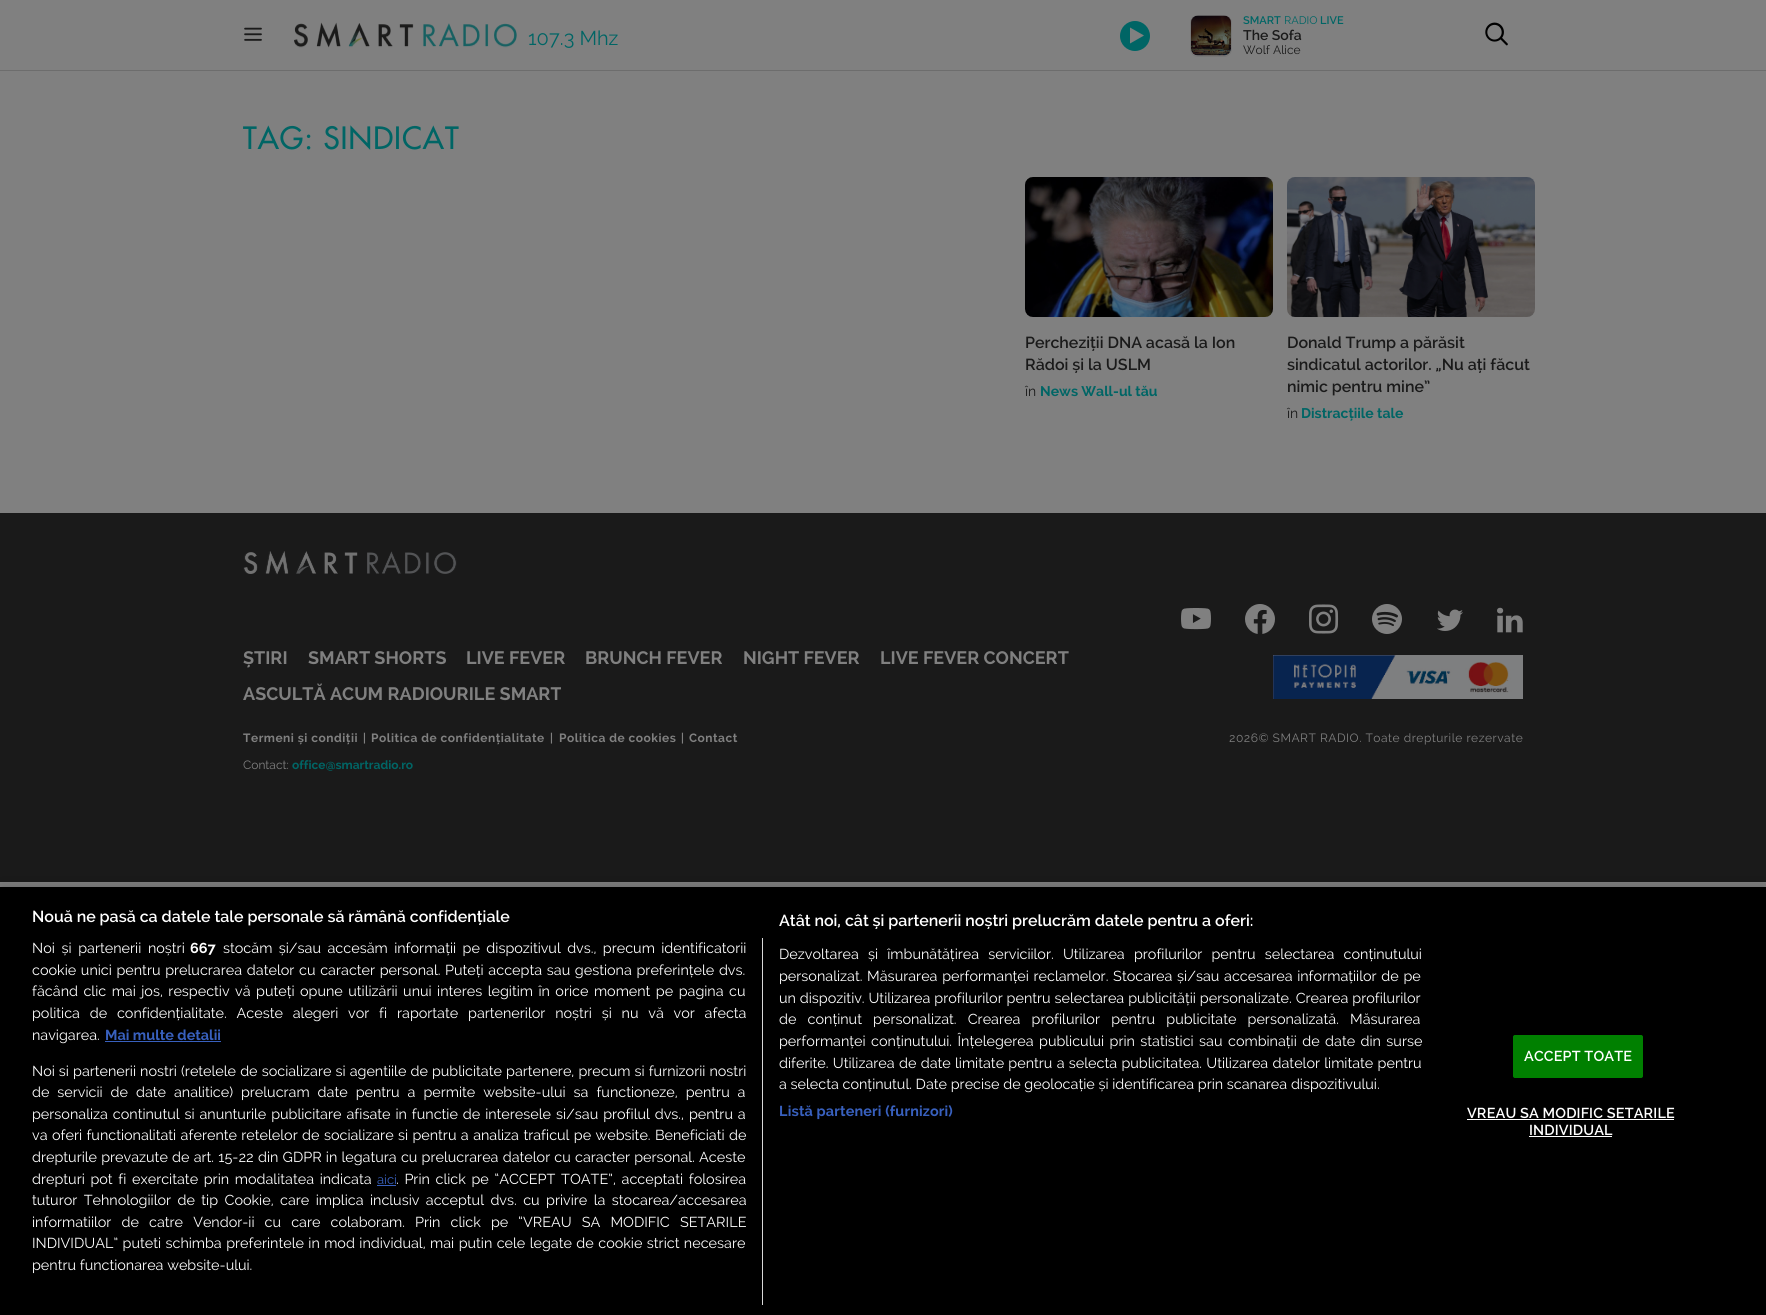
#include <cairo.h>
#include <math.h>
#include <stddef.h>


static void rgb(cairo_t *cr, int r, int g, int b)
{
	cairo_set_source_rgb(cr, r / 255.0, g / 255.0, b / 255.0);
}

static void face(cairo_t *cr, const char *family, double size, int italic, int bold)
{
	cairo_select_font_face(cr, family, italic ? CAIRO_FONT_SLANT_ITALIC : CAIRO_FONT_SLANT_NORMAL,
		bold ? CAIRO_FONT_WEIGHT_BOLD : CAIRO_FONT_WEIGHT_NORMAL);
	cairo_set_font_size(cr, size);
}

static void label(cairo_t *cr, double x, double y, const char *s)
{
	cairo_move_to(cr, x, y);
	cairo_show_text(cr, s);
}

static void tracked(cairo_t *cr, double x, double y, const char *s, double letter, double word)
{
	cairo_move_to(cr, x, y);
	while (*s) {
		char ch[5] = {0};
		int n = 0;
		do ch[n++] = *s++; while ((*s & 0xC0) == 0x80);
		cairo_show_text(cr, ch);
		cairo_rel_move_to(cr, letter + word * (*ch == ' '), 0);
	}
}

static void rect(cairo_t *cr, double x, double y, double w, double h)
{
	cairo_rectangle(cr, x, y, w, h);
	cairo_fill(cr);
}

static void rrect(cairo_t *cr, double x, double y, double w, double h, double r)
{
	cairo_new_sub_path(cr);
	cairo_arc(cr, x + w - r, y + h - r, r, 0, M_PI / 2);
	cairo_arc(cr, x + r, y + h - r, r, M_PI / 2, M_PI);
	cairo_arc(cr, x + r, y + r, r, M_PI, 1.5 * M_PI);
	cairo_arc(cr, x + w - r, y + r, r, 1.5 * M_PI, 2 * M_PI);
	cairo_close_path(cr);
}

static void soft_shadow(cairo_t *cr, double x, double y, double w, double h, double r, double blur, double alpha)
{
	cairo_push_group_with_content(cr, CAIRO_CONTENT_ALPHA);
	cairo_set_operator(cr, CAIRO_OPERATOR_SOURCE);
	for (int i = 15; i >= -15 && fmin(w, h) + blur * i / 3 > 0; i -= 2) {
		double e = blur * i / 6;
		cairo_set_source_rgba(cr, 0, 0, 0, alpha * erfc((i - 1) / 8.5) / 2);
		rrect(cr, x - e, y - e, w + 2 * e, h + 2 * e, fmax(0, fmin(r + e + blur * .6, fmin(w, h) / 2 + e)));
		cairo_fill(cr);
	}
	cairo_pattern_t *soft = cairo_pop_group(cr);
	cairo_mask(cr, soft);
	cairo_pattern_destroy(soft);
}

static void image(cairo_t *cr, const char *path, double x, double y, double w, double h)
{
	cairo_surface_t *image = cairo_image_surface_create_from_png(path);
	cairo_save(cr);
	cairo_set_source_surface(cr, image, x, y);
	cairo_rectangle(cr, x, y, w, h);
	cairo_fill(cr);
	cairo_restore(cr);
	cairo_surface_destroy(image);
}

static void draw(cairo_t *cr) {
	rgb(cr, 128, 128, 128);
	cairo_paint(cr);
	rgb(cr, 109, 109, 109);
	rect(cr, 0, 70, 1766, 1);
	image(cr, "image0.png", 244, 27, 18, 14);
	image(cr, "image1.png", 294, 22, 223, 26);
	face(cr, "Raleway", 20, 0, 0);
	rgb(cr, 0, 101, 101);
	label(cr, 528, 45, "107.3 Mhz");
	cairo_new_path(cr);
	cairo_arc(cr, 1135, 36, 15, 0, 2 * M_PI);
	cairo_fill(cr);
	rgb(cr, 128, 128, 128);
	cairo_new_path(cr);
	cairo_move_to(cr, 1144, 35.5);
	cairo_line_to(cr, 1130, 27.5);
	cairo_line_to(cr, 1130, 43.5);
	cairo_close_path(cr);
	cairo_fill(cr);
	rrect(cr, 1190.5, 15.5, 41, 41, 7.5);
	rgb(cr, 119, 119, 119);
	cairo_set_line_width(cr, 1);
	cairo_stroke(cr);
	image(cr, "image2.png", 1191, 15, 40, 41);
	face(cr, "Raleway SemiBold", 11, 0, 0);
	rgb(cr, 0, 101, 101);
	label(cr, 1243, 24, "SMART");
	face(cr, "Raleway", 11, 0, 0);
	label(cr, 1284, 24, "RADIO");
	face(cr, "Raleway SemiBold", 11, 0, 0);
	label(cr, 1320, 24, "LIVE");
	face(cr, "Raleway SemiBold", 14, 0, 0);
	rgb(cr, 26, 26, 26);
	label(cr, 1243, 40, "The Sofa");
	face(cr, "Raleway", 12, 0, 0);
	label(cr, 1243, 54, "Wolf Alice");
	image(cr, "image3.png", 1485, 22, 23, 24);
	face(cr, "Futura Medium", 30, 0, 0);
	rgb(cr, 0, 101, 101);
	tracked(cr, 243, 149, "TAG: SINDICAT", 1, 0);
	image(cr, "image4.png", 1025, 177, 248, 140);
	face(cr, "Raleway SemiBold", 16, 0, 0);
	rgb(cr, 26, 26, 26);
	label(cr, 1025, 348, "Percheziții DNA acasă la Ion");
	label(cr, 1025, 370, "Rădoi și la USLM");
	face(cr, "Raleway", 14, 0, 0);
	label(cr, 1025, 396, "în");
	face(cr, "Raleway", 14, 0, 1);
	rgb(cr, 0, 101, 101);
	label(cr, 1040, 396, "News Wall-ul tău");
	image(cr, "image5.png", 1287, 177, 248, 140);
	face(cr, "Raleway SemiBold", 16, 0, 0);
	rgb(cr, 26, 26, 26);
	label(cr, 1287, 348, "Donald Trump a părăsit");
	label(cr, 1287, 370, "sindicatul actorilor. „Nu ați făcut");
	label(cr, 1287, 392, "nimic pentru mine”");
	face(cr, "Raleway", 14, 0, 0);
	label(cr, 1287, 418, "în");
	face(cr, "Raleway", 14, 0, 1);
	rgb(cr, 0, 101, 101);
	label(cr, 1301, 418, "Distracțiile tale");
	rgb(cr, 26, 26, 26);
	rect(cr, 0, 513, 1766, 369);
	image(cr, "image6.png", 243, 551, 214, 24);
	image(cr, "image7.png", 1181, 608, 30, 22);
	image(cr, "image8.png", 1245, 604, 30, 30);
	image(cr, "image9.png", 1309, 604, 30, 30);
	image(cr, "image10.png", 1372, 604, 30, 30);
	image(cr, "image11.png", 1437, 609, 26, 22);
	image(cr, "image12.png", 1497, 607, 26, 26);
	face(cr, "Raleway", 18, 0, 1);
	rgb(cr, 128, 128, 128);
	label(cr, 243, 664, "ȘTIRI");
	label(cr, 308, 664, "SMART SHORTS");
	label(cr, 466, 664, "LIVE FEVER");
	label(cr, 585, 664, "BRUNCH FEVER");
	label(cr, 743, 664, "NIGHT FEVER");
	label(cr, 880, 664, "LIVE FEVER CONCERT");
	label(cr, 243, 700, "ASCULTĂ ACUM RADIOURILE SMART");
	image(cr, "image13.png", 1273, 655, 250, 44);
	face(cr, "Raleway", 12, 0, 1);
	tracked(cr, 243, 742, "Termeni și condiții", 0.5, 0);
	face(cr, "Raleway SemiBold", 12, 0, 0);
	tracked(cr, 363, 742, "|", 0.5, 0);
	face(cr, "Raleway", 12, 0, 1);
	tracked(cr, 371, 742, "Politica de confidențialitate", 0.5, 0);
	face(cr, "Raleway SemiBold", 12, 0, 0);
	tracked(cr, 550, 742, "|", 0.5, 0);
	face(cr, "Raleway", 12, 0, 1);
	tracked(cr, 559, 742, "Politica de cookies", 0.5, 0);
	face(cr, "Raleway SemiBold", 12, 0, 0);
	tracked(cr, 681, 742, "|", 0.5, 0);
	face(cr, "Raleway", 12, 0, 1);
	tracked(cr, 689, 742, "Contact", 0.5, 0);
	face(cr, "Raleway", 12, 0, 0);
	tracked(cr, 1229, 742, "2026© SMART RADIO. Toate drepturile rezervate", 0.5, 0);
	label(cr, 243, 769, "Contact:");
	face(cr, "Raleway", 12, 0, 1);
	rgb(cr, 0, 101, 101);
	label(cr, 292, 769, "office@smartradio.ro");
	rgb(cr, 0, 0, 0);
	soft_shadow(cr, 0, 887, 1766, 428, 0, 9, 0.2);
	rgb(cr, 0, 0, 0);
	rect(cr, 0, 887, 1766, 428);
	face(cr, "Raleway SemiBold", 16, 0, 0);
	rgb(cr, 255, 255, 255);
	label(cr, 32, 922, "Nouă ne pasă ca datele tale personale să rămână confidențiale");
	label(cr, 779, 926, "Atât noi, cât și partenerii noștri prelucrăm datele pentru a oferi:");
	face(cr, "Raleway", 14.4, 0, 0);
	tracked(cr, 779, 959, "Dezvoltarea și îmbunătățirea serviciilor. Utilizarea profilurilor pentru selectarea conținutului", 0, 5.5);
	tracked(cr, 779, 981, "personalizat. Măsurarea performanței reclamelor. Stocarea și/sau accesarea informațiilor de pe", 0, 1);
	tracked(cr, 779, 1003, "un dispozitiv. Utilizarea profilurilor pentru selectarea publicității personalizate. Crearea profilurilor", 0, 0.25);
	tracked(cr, 779, 1024, "de conținut personalizat. Crearea profilurilor pentru publicitate personalizată. Măsurarea", 0, 7.5);
	tracked(cr, 779, 1046, "performanței conținutului. Înțelegerea publicului prin statistici sau combinații de date din surse", 0, 1.75);
	tracked(cr, 779, 1068, "diferite. Utilizarea de date limitate pentru a selecta publicitatea. Utilizarea datelor limitate pentru", 0, 0.6);
	label(cr, 779, 1089, "a selecta conținutul. Date precise de geolocație și identificarea prin scanarea dispozitivului.");
	face(cr, "Raleway", 14.4, 0, 1);
	rgb(cr, 56, 96, 190);
	tracked(cr, 779, 1116, "Listă parteneri (furnizori)", 0.15, 0);
	rgb(cr, 216, 216, 216);
	rect(cr, 762, 938, 1, 367);
	face(cr, "Raleway", 14.4, 0, 0);
	rgb(cr, 255, 255, 255);
	tracked(cr, 32, 953, "Noi și partenerii noștri", 0, 3);
	face(cr, "Raleway", 14.4, 0, 1);
	label(cr, 190, 953, "667");
	face(cr, "Raleway", 14.4, 0, 0);
	tracked(cr, 223, 953, "stocăm și/sau accesăm informații pe dispozitivul dvs., precum identificatorii", 0, 2.75);
	tracked(cr, 32, 975, "cookie unici pentru prelucrarea datelor cu caracter personal. Puteți accepta sau gestiona preferințele dvs.", 0, 1);
	tracked(cr, 32, 996, "făcând clic mai jos, respectiv vă puteți opune utilizării unui interes legitim în orice moment pe pagina cu", 0, 1.8);
	tracked(cr, 32, 1018, "politica de confidențialitate. Aceste alegeri vor fi raportate partenerilor noștri și nu vă vor afecta", 0, 6.1);
	label(cr, 32, 1040, "navigarea.");
	face(cr, "Raleway", 14.4, 0, 1);
	rgb(cr, 56, 96, 190);
	label(cr, 105, 1040, "Mai multe detalii");
	rect(cr, 105, 1041, 116, 1);
	face(cr, "Raleway", 14.4, 0, 0);
	rgb(cr, 255, 255, 255);
	tracked(cr, 32, 1076, "Noi si partenerii nostri (retelele de socializare si agentiile de publicitate partenere, precum si furnizorii nostri", 0, 0.4);
	tracked(cr, 32, 1097, "de servicii de date analitice) prelucram date pentru a permite website-ului sa functioneze, pentru a", 0, 4.25);
	tracked(cr, 32, 1119, "personaliza continutul si anunturile publicitare afisate in functie de interesele si/sau profilul dvs., pentru a", 0, 1.25);
	tracked(cr, 32, 1140, "va oferi functionalitati aferente retelelor de socializare si pentru a analiza traficul pe website. Beneficiati de", 0, 0.7);
	tracked(cr, 32, 1162, "drepturile prevazute de art. 15-22 din GDPR in legatura cu prelucrarea datelor cu caracter personal. Aceste", 0, 0.5);
	tracked(cr, 32, 1184, "drepturi pot fi exercitate prin modalitatea indicata", 0, 2);
	face(cr, "Raleway", 13, 0, 0);
	rgb(cr, 56, 96, 190);
	label(cr, 377, 1184, "aici");
	rect(cr, 377, 1185, 19, 1);
	face(cr, "Raleway", 14.4, 0, 0);
	rgb(cr, 255, 255, 255);
	tracked(cr, 396, 1184, ". Prin click pe “ACCEPT TOATE”, acceptati folosirea", 0, 2);
	tracked(cr, 32, 1205, "tuturor Tehnologiilor de tip Cookie, care implica inclusiv acceptul dvs. cu privire la stocarea/accesarea", 0, 2.75);
	tracked(cr, 32, 1227, "informatiilor de catre Vendor-ii cu care colaboram. Prin click pe “VREAU SA MODIFIC SETARILE", 0, 6.4);
	tracked(cr, 32, 1248, "INDIVIDUAL” puteti schimba preferintele in mod individual, mai putin cele legate de cookie strict necesare", 0, 0.75);
	label(cr, 32, 1270, "pentru functionarea website-ului.");
	rgb(cr, 0, 128, 0);
	rrect(cr, 1513.5, 1035.5, 129, 42, 1.5);
	cairo_fill_preserve(cr);
	cairo_stroke(cr);
	face(cr, "Raleway SemiBold", 14.4, 0, 0);
	rgb(cr, 255, 255, 255);
	tracked(cr, 1524, 1061, "ACCEPT TOATE", 0.15, 0);
	tracked(cr, 1467, 1118, "VREAU SA MODIFIC SETARILE", 0.15, 0);
	rect(cr, 1467, 1119, 207, 1);
	tracked(cr, 1529, 1135, "INDIVIDUAL", 0.15, 0);
	rect(cr, 1529, 1136, 83, 1);
}

int main(void) {
	cairo_surface_t *surface = cairo_image_surface_create(CAIRO_FORMAT_RGB24, 1766, 1315);
	cairo_t *cr = cairo_create(surface);
	cairo_font_options_t *options = cairo_font_options_create();
	cairo_font_options_set_hint_metrics(options, CAIRO_HINT_METRICS_OFF);
	cairo_font_options_set_hint_style(options, CAIRO_HINT_STYLE_NONE);
	cairo_set_font_options(cr, options);
	cairo_set_miter_limit(cr, 4);
	draw(cr);
	cairo_surface_write_to_png(surface, "render.png");
	cairo_font_options_destroy(options);
	cairo_destroy(cr);
	cairo_surface_destroy(surface);
	return 0;
}
